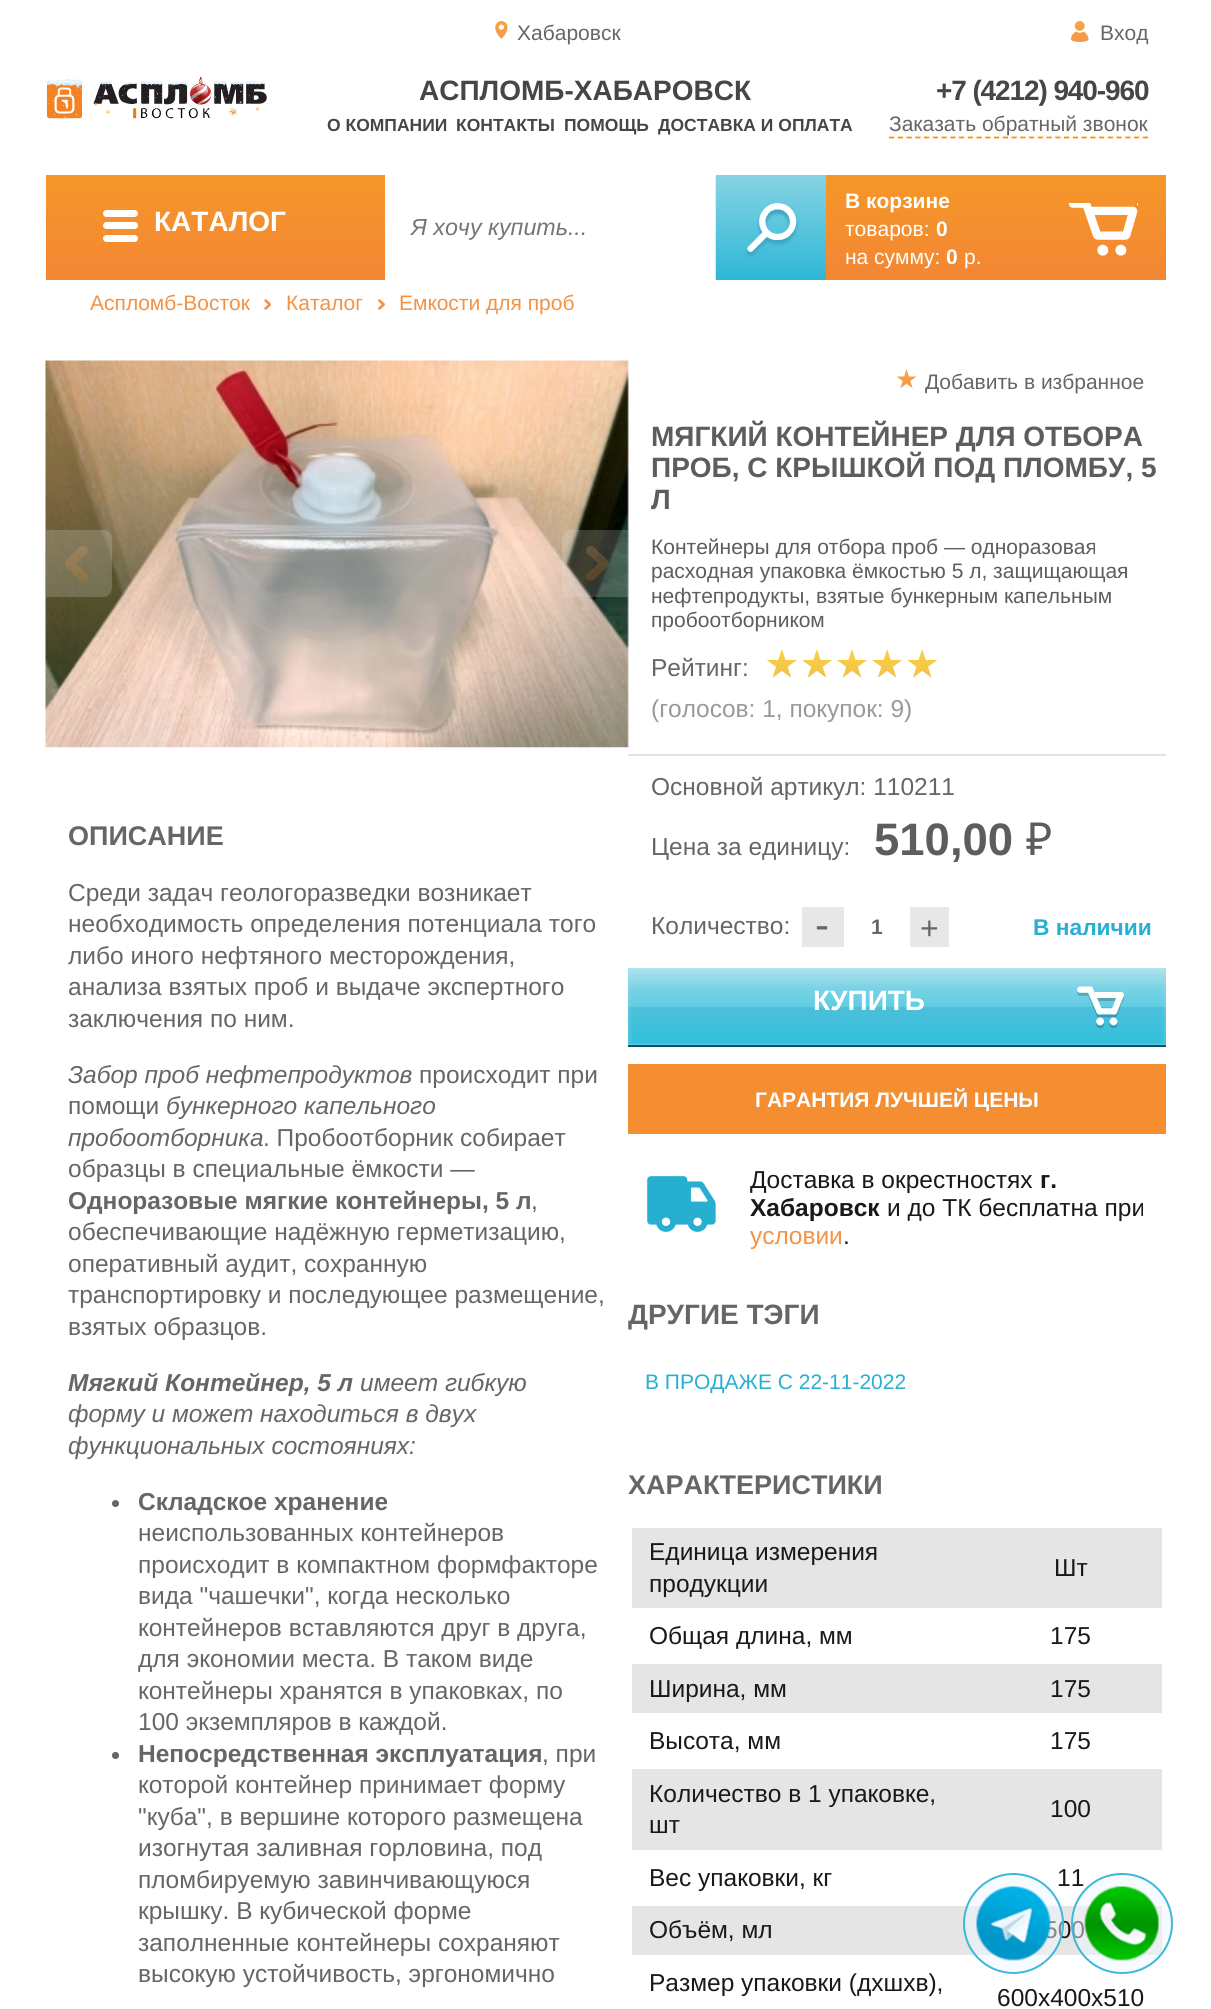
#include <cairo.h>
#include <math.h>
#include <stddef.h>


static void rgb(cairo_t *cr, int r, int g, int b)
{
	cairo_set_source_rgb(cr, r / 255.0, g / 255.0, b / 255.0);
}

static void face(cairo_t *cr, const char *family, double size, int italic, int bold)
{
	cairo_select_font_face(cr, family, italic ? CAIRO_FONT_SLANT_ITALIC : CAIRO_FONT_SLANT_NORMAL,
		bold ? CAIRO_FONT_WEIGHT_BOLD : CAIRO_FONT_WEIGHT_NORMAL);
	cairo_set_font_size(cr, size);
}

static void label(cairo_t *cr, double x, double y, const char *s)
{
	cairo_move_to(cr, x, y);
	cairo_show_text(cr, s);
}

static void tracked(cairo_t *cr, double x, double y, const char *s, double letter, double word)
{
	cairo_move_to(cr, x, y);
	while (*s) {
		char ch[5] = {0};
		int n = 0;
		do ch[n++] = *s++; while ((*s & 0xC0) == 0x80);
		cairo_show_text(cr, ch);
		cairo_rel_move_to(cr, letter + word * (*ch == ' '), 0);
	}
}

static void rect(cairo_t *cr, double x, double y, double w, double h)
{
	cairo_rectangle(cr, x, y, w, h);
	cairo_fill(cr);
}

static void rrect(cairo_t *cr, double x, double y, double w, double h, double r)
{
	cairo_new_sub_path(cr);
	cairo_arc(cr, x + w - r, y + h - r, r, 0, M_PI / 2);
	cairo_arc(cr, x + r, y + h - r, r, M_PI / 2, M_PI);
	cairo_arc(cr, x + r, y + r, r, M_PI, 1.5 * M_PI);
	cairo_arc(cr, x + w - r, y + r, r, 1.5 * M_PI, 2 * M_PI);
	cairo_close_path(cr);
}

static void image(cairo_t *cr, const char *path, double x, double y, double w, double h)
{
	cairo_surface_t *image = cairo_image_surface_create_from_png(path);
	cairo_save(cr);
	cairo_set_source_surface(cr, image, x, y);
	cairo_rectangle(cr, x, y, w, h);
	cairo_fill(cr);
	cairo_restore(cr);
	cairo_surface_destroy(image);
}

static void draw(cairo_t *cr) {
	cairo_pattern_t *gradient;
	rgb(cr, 255, 255, 255);
	cairo_paint(cr);
	image(cr, "image0.png", 495, 21, 13, 18);
	face(cr, "Liberation Sans", 21, 0, 0);
	rgb(cr, 102, 102, 102);
	label(cr, 517, 40, "Хабаровск");
	image(cr, "image1.png", 1071, 21, 18, 21);
	label(cr, 1100, 40, "Вход");
	image(cr, "image2.png", 46, 77, 221, 42);
	face(cr, "Liberation Sans", 28, 0, 1);
	rgb(cr, 70, 70, 70);
	label(cr, 419, 100, "АСПЛОМБ-ХАБАРОВСК");
	face(cr, "Liberation Sans", 17.5, 0, 1);
	label(cr, 327, 131, "О КОМПАНИИ");
	label(cr, 456, 131, "КОНТАКТЫ");
	label(cr, 564, 131, "ПОМОЩЬ");
	label(cr, 658, 131, "ДОСТАВКА И ОПЛАТА");
	face(cr, "Liberation Sans", 28, 0, 1);
	tracked(cr, 936, 100, "+7 (4212) 940-960", -1.1, 0);
	cairo_new_path(cr);
	cairo_move_to(cr, 889, 137.5);
	cairo_line_to(cr, 1148, 137.5);
	rgb(cr, 245, 151, 10);
	cairo_set_line_width(cr, 1.8);
	cairo_set_dash(cr, (double[]){5.25, 3.5}, 2, 0);
	cairo_stroke(cr);
	face(cr, "Liberation Sans", 21, 0, 0);
	rgb(cr, 102, 102, 102);
	label(cr, 889, 131, "Заказать обратный звонок");
	gradient = cairo_pattern_create_linear(606, 175, 606, 280);
	cairo_pattern_add_color_stop_rgba(gradient, 0, 0.961, 0.592, 0.157, 1);
	cairo_pattern_add_color_stop_rgba(gradient, 1, 0.953, 0.525, 0.208, 1);
	cairo_set_source(cr, gradient);
	cairo_pattern_destroy(gradient);
	rect(cr, 46, 175, 1120, 105);
	rgb(cr, 255, 255, 255);
	rrect(cr, 103, 210, 35, 7, 3.5);
	cairo_fill(cr);
	rrect(cr, 103, 222, 35, 7, 3.5);
	cairo_fill(cr);
	rrect(cr, 103, 235, 35, 7, 3.5);
	cairo_fill(cr);
	face(cr, "Liberation Sans", 28, 0, 1);
	label(cr, 154, 231, "КАТАЛОГ");
	rect(cr, 385, 175, 331, 105);
	face(cr, "Liberation Sans", 23.25, 1, 0);
	rgb(cr, 117, 117, 117);
	label(cr, 411, 235, "Я хочу купить...");
	image(cr, "image3.png", 715, 175, 111, 105);
	face(cr, "Liberation Sans", 21, 0, 1);
	rgb(cr, 255, 255, 255);
	label(cr, 845, 208, "В корзине");
	image(cr, "image4.png", 1069, 203, 69, 53);
	face(cr, "Liberation Sans", 21, 0, 0);
	label(cr, 845, 236, "товаров:");
	face(cr, "Liberation Sans", 21, 0, 1);
	label(cr, 936, 236, "0");
	face(cr, "Liberation Sans", 21, 0, 0);
	label(cr, 845, 264, "на сумму:");
	face(cr, "Liberation Sans", 21, 0, 1);
	label(cr, 946, 264, "0");
	face(cr, "Liberation Sans", 21, 0, 0);
	label(cr, 964, 264, "р.");
	rgb(cr, 244, 146, 68);
	label(cr, 90, 310, "Аспломб-Восток");
	image(cr, "image5.png", 264, 299, 7, 11);
	label(cr, 286, 310, "Каталог");
	image(cr, "image6.png", 378, 299, 7, 11);
	label(cr, 399, 310, "Емкости для проб");
	image(cr, "image7.png", 45, 360, 584, 388);
	cairo_set_source_rgba(cr, 0.937, 0.937, 0.937, 0.2);
	cairo_new_path(cr);
	cairo_move_to(cr, 46, 530);
	cairo_line_to(cr, 103, 530);
	cairo_curve_to(cr, 108, 530, 112, 534, 112, 539);
	cairo_line_to(cr, 112, 588);
	cairo_curve_to(cr, 112, 593, 108, 597, 103, 597);
	cairo_line_to(cr, 46, 597);
	cairo_close_path(cr);
	cairo_fill(cr);
	image(cr, "image8.png", 64, 546, 24, 35);
	cairo_new_path(cr);
	cairo_move_to(cr, 571, 530);
	cairo_line_to(cr, 628, 530);
	cairo_line_to(cr, 628, 597);
	cairo_line_to(cr, 571, 597);
	cairo_curve_to(cr, 566, 597, 562, 593, 562, 588);
	cairo_line_to(cr, 562, 539);
	cairo_curve_to(cr, 562, 534, 566, 530, 571, 530);
	cairo_close_path(cr);
	cairo_fill(cr);
	image(cr, "image9.png", 586, 546, 23, 35);
	image(cr, "image10.png", 896, 369, 21, 20);
	rgb(cr, 102, 102, 102);
	label(cr, 925, 389, "Добавить в избранное");
	face(cr, "Liberation Sans", 28, 0, 1);
	rgb(cr, 93, 93, 93);
	label(cr, 651, 446, "МЯГКИЙ КОНТЕЙНЕР ДЛЯ ОТБОРА");
	label(cr, 651, 477, "ПРОБ, С КРЫШКОЙ ПОД ПЛОМБУ, 5");
	label(cr, 651, 509, "Л");
	face(cr, "Liberation Sans", 21, 0, 0);
	label(cr, 651, 554, "Контейнеры для отбора проб — одноразовая");
	label(cr, 651, 578, "расходная упаковка ёмкостью 5 л, защищающая");
	label(cr, 651, 603, "нефтепродукты, взятые бункерным капельным");
	label(cr, 651, 627, "пробоотборником");
	face(cr, "Liberation Sans", 24.5, 0, 0);
	rgb(cr, 102, 102, 102);
	label(cr, 651, 676, "Рейтинг:");
	image(cr, "image11.png", 767, 649, 170, 29);
	image(cr, "image12.png", 767, 649, 170, 29);
	rgb(cr, 153, 153, 153);
	label(cr, 651, 717, "(голосов: 1, покупок: 9)");
	rgb(cr, 226, 226, 226);
	rect(cr, 628, 754, 538, 2);
	rgb(cr, 102, 102, 102);
	label(cr, 651, 795, "Основной артикул: 110211");
	label(cr, 651, 855, "Цена за единицу:");
	face(cr, "Liberation Sans", 45.5, 0, 1);
	rgb(cr, 93, 93, 93);
	label(cr, 874, 855, "510,00");
	face(cr, "Noto Sans", 45.5, 0, 0);
	label(cr, 1026, 855, "₽");
	face(cr, "Liberation Sans", 24.5, 0, 0);
	rgb(cr, 102, 102, 102);
	label(cr, 651, 934, "Количество:");
	rgb(cr, 231, 231, 231);
	rect(cr, 802, 907, 147, 40);
	face(cr, "Liberation Sans", 42, 0, 0);
	rgb(cr, 102, 102, 102);
	label(cr, 815, 939, "-");
	rgb(cr, 255, 255, 255);
	rect(cr, 844, 907, 66, 40);
	face(cr, "Liberation Sans", 21, 0, 1);
	rgb(cr, 102, 102, 102);
	label(cr, 871, 934, "1");
	face(cr, "Liberation Sans", 32, 0, 0);
	label(cr, 920, 939, "+");
	face(cr, "Liberation Sans", 22.75, 0, 1);
	rgb(cr, 39, 175, 213);
	label(cr, 1033, 935, "В наличии");
	gradient = cairo_pattern_create_linear(897, 968, 897, 1047);
	cairo_pattern_add_color_stop_rgba(gradient, 0.01, 0.69, 0.898, 0.929, 1);
	cairo_pattern_add_color_stop_rgba(gradient, 0.02, 0.671, 0.882, 0.929, 1);
	cairo_pattern_add_color_stop_rgba(gradient, 0.25, 0.478, 0.827, 0.898, 1);
	cairo_pattern_add_color_stop_rgba(gradient, 0.5, 0.373, 0.8, 0.882, 1);
	cairo_pattern_add_color_stop_rgba(gradient, 0.5, 0.302, 0.749, 0.855, 1);
	cairo_pattern_add_color_stop_rgba(gradient, 0.96, 0.192, 0.753, 0.867, 1);
	cairo_pattern_add_color_stop_rgba(gradient, 0.98, 0.565, 0.855, 0.906, 1);
	cairo_set_source(cr, gradient);
	cairo_pattern_destroy(gradient);
	rect(cr, 628, 968, 538, 77);
	gradient = cairo_pattern_create_linear(628, 1007, 1166, 1007);
	cairo_pattern_add_color_stop_rgba(gradient, 0, 0.643, 0.875, 0.929, 0.2);
	cairo_pattern_add_color_stop_rgba(gradient, 0.01, 0.643, 0.875, 0.929, 0);
	cairo_pattern_add_color_stop_rgba(gradient, 0.99, 0.69, 0.855, 0.937, 0);
	cairo_pattern_add_color_stop_rgba(gradient, 1, 0.69, 0.855, 0.937, 0.2);
	cairo_set_source(cr, gradient);
	cairo_pattern_destroy(gradient);
	rect(cr, 628, 973, 538, 72);
	gradient = cairo_pattern_create_linear(897, 968, 897, 1047);
	cairo_pattern_add_color_stop_rgba(gradient, 0, 0, 0, 0, 0);
	cairo_pattern_add_color_stop_rgba(gradient, 0.98, 0.047, 0.322, 0.424, 0);
	cairo_pattern_add_color_stop_rgba(gradient, 0.98, 0.047, 0.322, 0.424, 1);
	cairo_set_source(cr, gradient);
	cairo_pattern_destroy(gradient);
	rect(cr, 628, 1045, 538, 2);
	face(cr, "Liberation Sans", 28, 0, 1);
	rgb(cr, 255, 255, 255);
	label(cr, 813, 1010, "КУПИТЬ");
	image(cr, "image13.png", 1077, 986, 47, 43);
	rgb(cr, 244, 142, 48);
	rect(cr, 628, 1064, 538, 70);
	face(cr, "Liberation Sans", 21, 0, 1);
	rgb(cr, 255, 255, 255);
	label(cr, 755, 1107, "ГАРАНТИЯ ЛУЧШЕЙ ЦЕНЫ");
	image(cr, "image14.png", 647, 1176, 69, 56);
	face(cr, "Liberation Sans", 24.5, 0, 0);
	rgb(cr, 25, 25, 25);
	label(cr, 750, 1188, "Доставка в окрестностях");
	face(cr, "Liberation Sans", 24.5, 0, 1);
	label(cr, 1040, 1188, "г.");
	label(cr, 750, 1216, "Хабаровск");
	face(cr, "Liberation Sans", 24.5, 0, 0);
	label(cr, 887, 1216, "и до ТК бесплатна при");
	rgb(cr, 244, 146, 68);
	label(cr, 750, 1244, "условии");
	rgb(cr, 25, 25, 25);
	label(cr, 843, 1244, ".");
	face(cr, "Liberation Sans", 28, 0, 1);
	rgb(cr, 102, 102, 102);
	label(cr, 628, 1324, "ДРУГИЕ ТЭГИ");
	face(cr, "Liberation Sans", 21, 0, 0);
	rgb(cr, 39, 175, 213);
	label(cr, 645, 1389, "В ПРОДАЖЕ С 22-11-2022");
	face(cr, "Liberation Sans", 27, 0, 1);
	rgb(cr, 102, 102, 102);
	label(cr, 68, 845, "ОПИСАНИЕ");
	face(cr, "Liberation Sans", 24.5, 0, 0);
	label(cr, 68, 901, "Среди задач геологоразведки возникает");
	label(cr, 68, 932, "необходимость определения потенциала того");
	label(cr, 68, 964, "либо иного нефтяного месторождения,");
	label(cr, 68, 995, "анализа взятых проб и выдаче экспертного");
	label(cr, 68, 1027, "заключения по ним.");
	face(cr, "Liberation Sans", 24.5, 1, 0);
	label(cr, 68, 1083, "Забор проб нефтепродуктов");
	face(cr, "Liberation Sans", 24.5, 0, 0);
	label(cr, 419, 1083, "происходит при");
	label(cr, 68, 1114, "помощи");
	face(cr, "Liberation Sans", 24.5, 1, 0);
	label(cr, 166, 1114, "бункерного капельного");
	label(cr, 68, 1146, "пробоотборника");
	face(cr, "Liberation Sans", 24.5, 0, 0);
	label(cr, 263, 1146, ". Пробоотборник собирает");
	label(cr, 68, 1177, "образцы в специальные ёмкости —");
	face(cr, "Liberation Sans", 24.5, 0, 1);
	label(cr, 68, 1209, "Одноразовые мягкие контейнеры, 5 л");
	face(cr, "Liberation Sans", 24.5, 0, 0);
	label(cr, 531, 1209, ",");
	label(cr, 68, 1240, "обеспечивающие надёжную герметизацию,");
	label(cr, 68, 1272, "оперативный аудит, сохранную");
	label(cr, 68, 1303, "транспортировку и последующее размещение,");
	label(cr, 68, 1335, "взятых образцов.");
	face(cr, "Liberation Sans", 24.5, 1, 1);
	label(cr, 68, 1391, "Мягкий Контейнер, 5 л");
	face(cr, "Liberation Sans", 24.5, 1, 0);
	label(cr, 360, 1391, "имеет гибкую");
	label(cr, 68, 1422, "форму и может находиться в двух");
	label(cr, 68, 1454, "функциональных состояниях:");
	cairo_new_path(cr);
	cairo_arc(cr, 115.5, 1503.5, 3.5, 0, 2 * M_PI);
	cairo_fill(cr);
	face(cr, "Liberation Sans", 24.5, 0, 1);
	label(cr, 138, 1510, "Складское хранение");
	face(cr, "Liberation Sans", 24.5, 0, 0);
	label(cr, 138, 1541, "неиспользованных контейнеров");
	label(cr, 138, 1573, "происходит в компактном формфакторе");
	label(cr, 138, 1604, "вида \"чашечки\", когда несколько");
	label(cr, 138, 1636, "контейнеров вставляются друг в друга,");
	label(cr, 138, 1667, "для экономии места. В таком виде");
	label(cr, 138, 1699, "контейнеры хранятся в упаковках, по");
	label(cr, 138, 1730, "100 экземпляров в каждой.");
	cairo_new_path(cr);
	cairo_arc(cr, 115.5, 1755.5, 3.5, 0, 2 * M_PI);
	cairo_fill(cr);
	face(cr, "Liberation Sans", 24.5, 0, 1);
	label(cr, 138, 1762, "Непосредственная эксплуатация");
	face(cr, "Liberation Sans", 24.5, 0, 0);
	label(cr, 542, 1762, ", при");
	label(cr, 138, 1793, "которой контейнер принимает форму");
	label(cr, 138, 1825, "\"куба\", в вершине которого размещена");
	label(cr, 138, 1856, "изогнутая заливная горловина, под");
	label(cr, 138, 1888, "пломбируемую завинчивающуюся");
	label(cr, 138, 1919, "крышку. В кубической форме");
	label(cr, 138, 1951, "заполненные контейнеры сохраняют");
	label(cr, 138, 1982, "высокую устойчивость, эргономично");
	face(cr, "Liberation Sans", 27, 0, 1);
	label(cr, 628, 1494, "ХАРАКТЕРИСТИКИ");
	rgb(cr, 229, 229, 229);
	rect(cr, 632, 1528, 530, 80);
	face(cr, "Liberation Sans", 24.5, 0, 0);
	rgb(cr, 25, 25, 25);
	label(cr, 649, 1560, "Единица измерения");
	label(cr, 649, 1592, "продукции");
	label(cr, 1054, 1576, "Шт");
	label(cr, 649, 1644, "Общая длина, мм");
	label(cr, 1050, 1644, "175");
	rgb(cr, 229, 229, 229);
	rect(cr, 632, 1664, 530, 49);
	rgb(cr, 25, 25, 25);
	label(cr, 649, 1697, "Ширина, мм");
	label(cr, 1050, 1697, "175");
	label(cr, 649, 1749, "Высота, мм");
	label(cr, 1050, 1749, "175");
	rgb(cr, 229, 229, 229);
	rect(cr, 632, 1769, 530, 81);
	rgb(cr, 25, 25, 25);
	label(cr, 649, 1802, "Количество в 1 упаковке,");
	label(cr, 649, 1833, "шт");
	label(cr, 1050, 1817, "100");
	label(cr, 649, 1886, "Вес упаковки, кг");
	label(cr, 1057, 1886, "11");
	rgb(cr, 229, 229, 229);
	rect(cr, 632, 1906, 530, 49);
	rgb(cr, 25, 25, 25);
	label(cr, 649, 1938, "Объём, мл");
	label(cr, 1044, 1938, "500");
	label(cr, 649, 1991, "Размер упаковки (дxшxв),");
	label(cr, 997, 2006, "600x400x510");
	cairo_set_source_rgba(cr, 0.941, 0.973, 1, 0.5);
	cairo_new_path(cr);
	cairo_arc(cr, 1013.5, 1923.5, 49.5, 0, 2 * M_PI);
	cairo_fill_preserve(cr);
	rgb(cr, 61, 184, 217);
	cairo_set_line_width(cr, 2);
	cairo_set_dash(cr, NULL, 0, 0);
	cairo_stroke(cr);
	image(cr, "image15.png", 976, 1886, 75, 75);
	cairo_set_source_rgba(cr, 0.941, 0.973, 1, 0.5);
	rrect(cr, 1072, 1874, 100, 99, 49.5);
	cairo_fill_preserve(cr);
	rgb(cr, 61, 184, 217);
	cairo_stroke(cr);
	image(cr, "image16.png", 1084, 1886, 75, 75);
}

int main(void) {
	cairo_surface_t *surface = cairo_image_surface_create(CAIRO_FORMAT_RGB24, 1211, 2009);
	cairo_t *cr = cairo_create(surface);
	cairo_font_options_t *options = cairo_font_options_create();
	cairo_font_options_set_hint_metrics(options, CAIRO_HINT_METRICS_OFF);
	cairo_font_options_set_hint_style(options, CAIRO_HINT_STYLE_NONE);
	cairo_set_font_options(cr, options);
	cairo_set_miter_limit(cr, 4);
	draw(cr);
	cairo_surface_write_to_png(surface, "render.png");
	cairo_font_options_destroy(options);
	cairo_destroy(cr);
	cairo_surface_destroy(surface);
	return 0;
}
